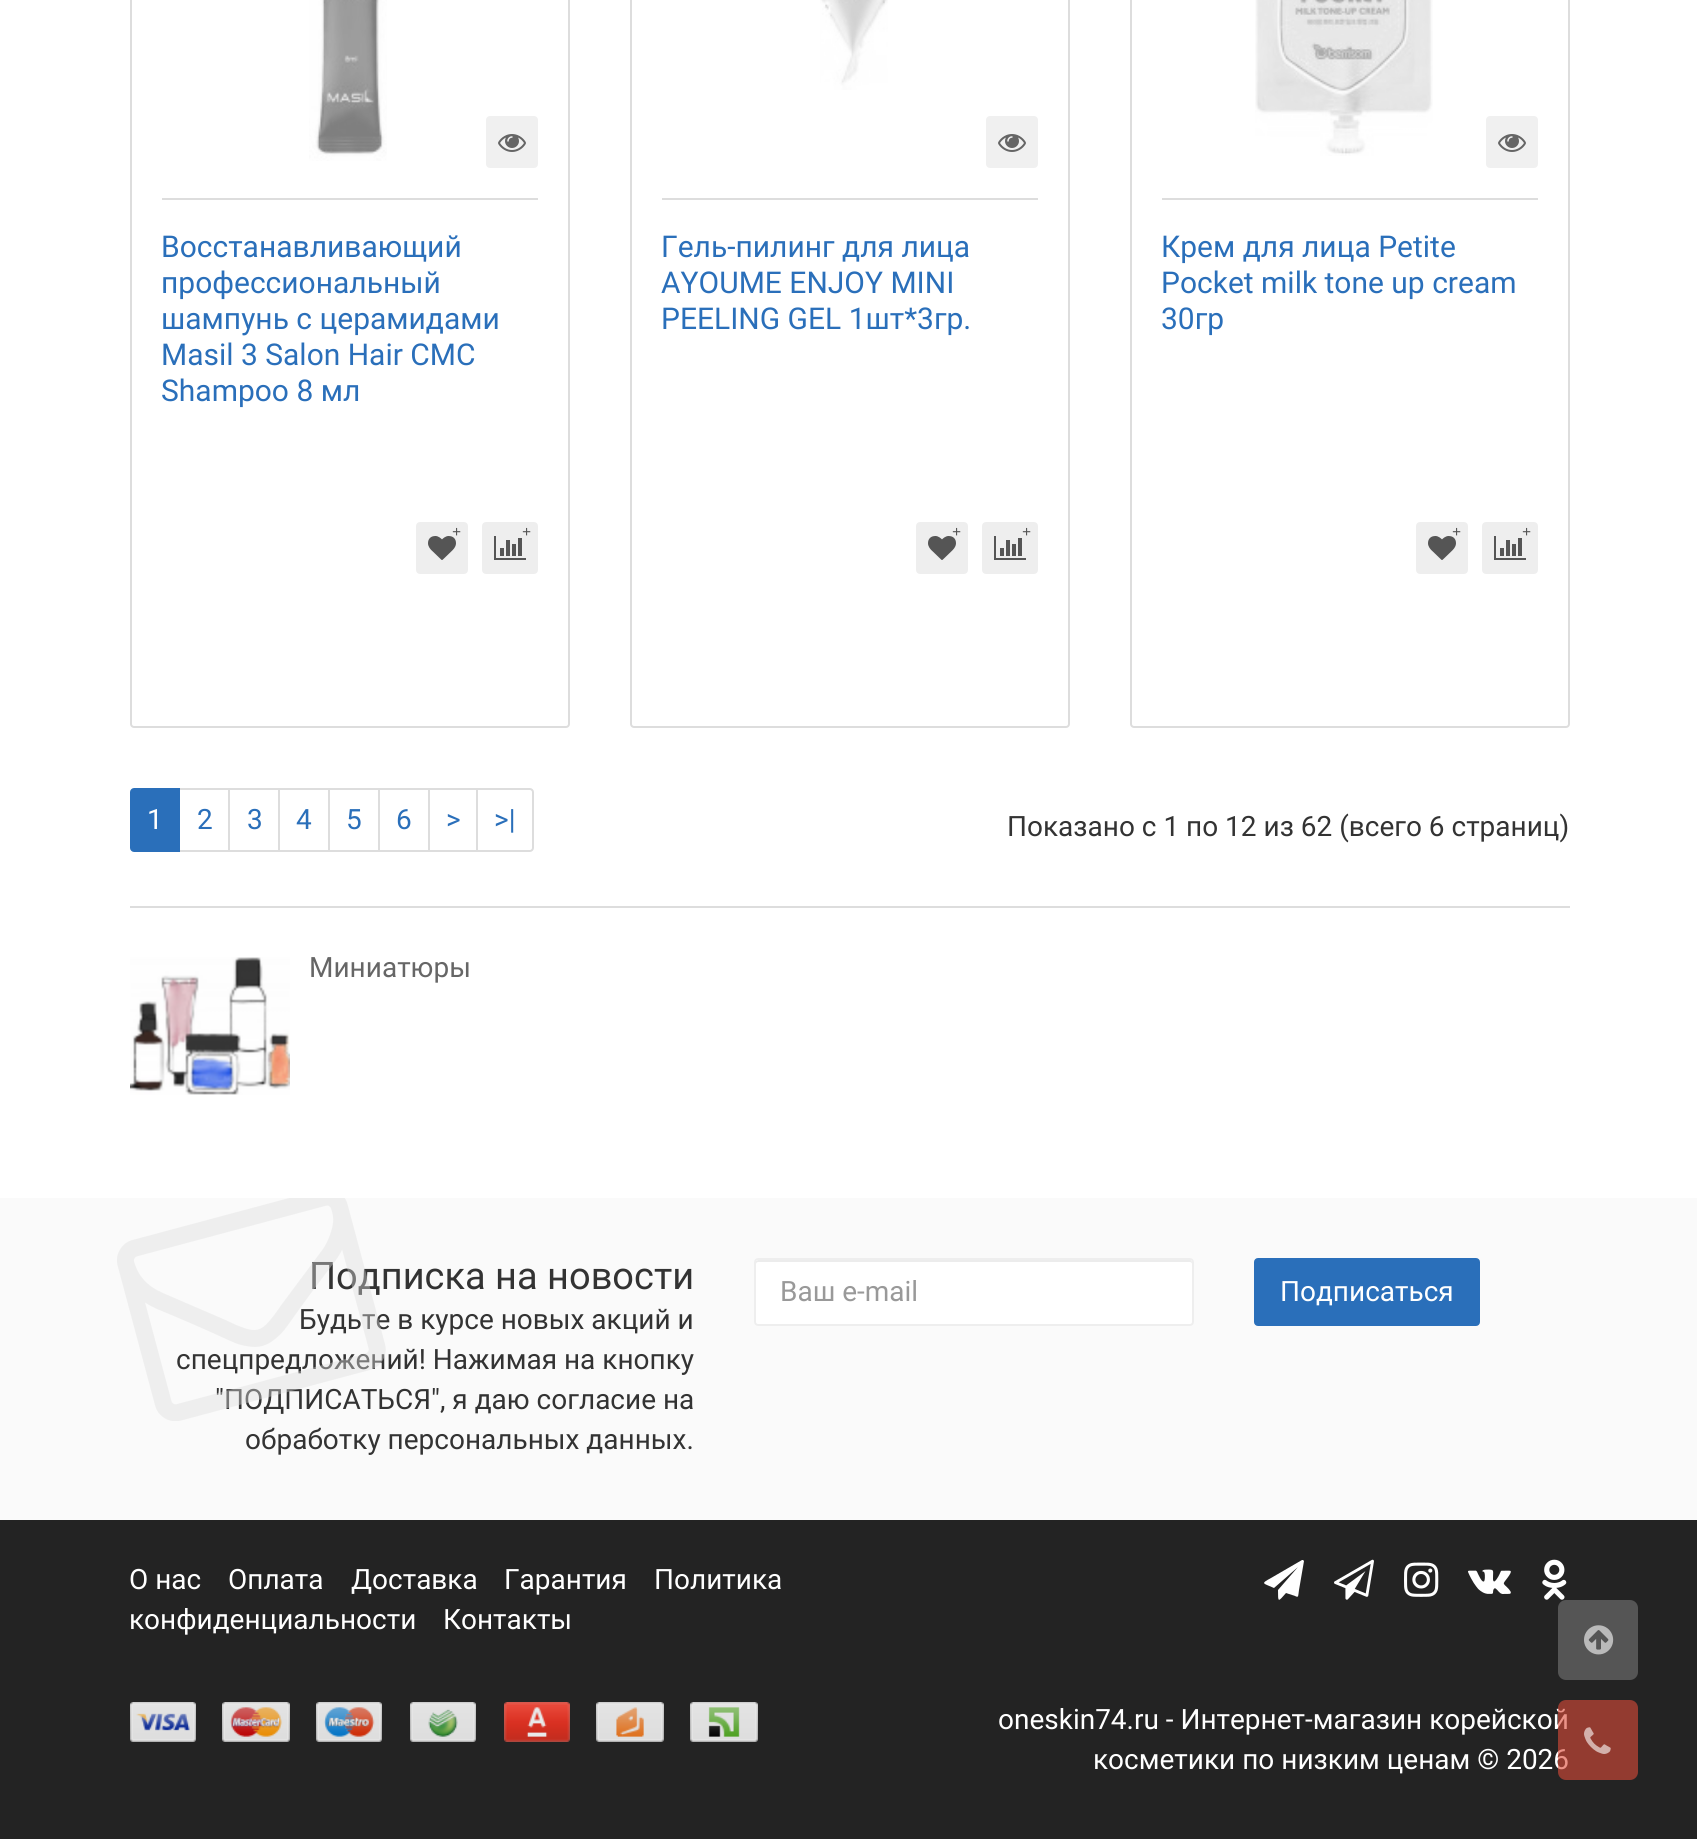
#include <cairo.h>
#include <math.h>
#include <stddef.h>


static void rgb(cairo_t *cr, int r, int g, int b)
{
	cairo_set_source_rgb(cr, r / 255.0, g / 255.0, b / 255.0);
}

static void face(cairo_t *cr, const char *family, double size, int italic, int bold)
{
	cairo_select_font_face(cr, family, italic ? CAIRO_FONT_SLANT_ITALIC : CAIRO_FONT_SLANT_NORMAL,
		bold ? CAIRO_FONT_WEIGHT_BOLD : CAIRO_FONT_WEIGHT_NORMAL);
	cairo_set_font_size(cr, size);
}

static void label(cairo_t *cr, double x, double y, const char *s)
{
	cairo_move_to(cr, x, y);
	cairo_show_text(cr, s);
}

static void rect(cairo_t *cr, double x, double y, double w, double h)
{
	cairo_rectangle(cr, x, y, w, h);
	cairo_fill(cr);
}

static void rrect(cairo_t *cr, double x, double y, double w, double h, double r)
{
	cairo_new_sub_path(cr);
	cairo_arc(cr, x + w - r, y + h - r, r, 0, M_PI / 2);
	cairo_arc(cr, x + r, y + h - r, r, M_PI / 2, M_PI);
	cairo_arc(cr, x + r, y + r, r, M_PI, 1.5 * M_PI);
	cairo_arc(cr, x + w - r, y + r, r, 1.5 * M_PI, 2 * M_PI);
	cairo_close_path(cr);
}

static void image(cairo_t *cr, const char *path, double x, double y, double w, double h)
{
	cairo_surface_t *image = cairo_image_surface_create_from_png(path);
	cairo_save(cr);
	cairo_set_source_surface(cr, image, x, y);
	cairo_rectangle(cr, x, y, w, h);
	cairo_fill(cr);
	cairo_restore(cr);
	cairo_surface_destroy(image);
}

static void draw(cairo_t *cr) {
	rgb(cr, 255, 255, 255);
	cairo_paint(cr);
	rrect(cr, 131, -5, 438, 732, 3);
	rgb(cr, 221, 221, 221);
	cairo_stroke(cr);
	image(cr, "image0.png", 309, 0, 78, 161);
	rgb(cr, 240, 240, 240);
	rrect(cr, 488, 118, 48, 48, 2);
	cairo_fill_preserve(cr);
	cairo_set_line_width(cr, 4);
	cairo_stroke(cr);
	image(cr, "image1.png", 498, 134, 28, 18);
	rgb(cr, 221, 221, 221);
	rect(cr, 162, 198, 376, 2);
	face(cr, "Roboto", 30, 0, 0);
	rgb(cr, 42, 111, 186);
	label(cr, 161, 257, "Восстанавливающий");
	label(cr, 161, 293, "профессиональный");
	label(cr, 161, 329, "шампунь с церамидами");
	label(cr, 161, 365, "Masil 3 Salon Hair CMC");
	label(cr, 161, 401, "Shampoo 8 мл");
	rgb(cr, 238, 238, 238);
	rrect(cr, 418, 524, 48, 48, 2);
	cairo_fill_preserve(cr);
	cairo_stroke(cr);
	face(cr, "Liberation Serif", 16, 0, 1);
	rgb(cr, 85, 85, 85);
	label(cr, 452, 537, "+");
	image(cr, "image2.png", 428, 536, 28, 24);
	rgb(cr, 238, 238, 238);
	rrect(cr, 484, 524, 52, 48, 2);
	cairo_fill_preserve(cr);
	cairo_stroke(cr);
	rgb(cr, 85, 85, 85);
	label(cr, 522, 537, "+");
	image(cr, "image3.png", 494, 536, 32, 24);
	rrect(cr, 631, -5, 438, 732, 3);
	rgb(cr, 221, 221, 221);
	cairo_set_line_width(cr, 2);
	cairo_stroke(cr);
	image(cr, "image4.png", 820, 0, 68, 90);
	rgb(cr, 240, 240, 240);
	rrect(cr, 988, 118, 48, 48, 2);
	cairo_fill_preserve(cr);
	cairo_set_line_width(cr, 4);
	cairo_stroke(cr);
	image(cr, "image1.png", 998, 134, 28, 18);
	rgb(cr, 221, 221, 221);
	rect(cr, 662, 198, 376, 2);
	face(cr, "Roboto", 30, 0, 0);
	rgb(cr, 42, 111, 186);
	label(cr, 661, 257, "Гель-пилинг для лица");
	label(cr, 661, 293, "AYOUME ENJOY MINI");
	label(cr, 661, 329, "PEELING GEL 1шт*3гр.");
	rgb(cr, 238, 238, 238);
	rrect(cr, 918, 524, 48, 48, 2);
	cairo_fill_preserve(cr);
	cairo_stroke(cr);
	face(cr, "Liberation Serif", 16, 0, 1);
	rgb(cr, 85, 85, 85);
	label(cr, 952, 537, "+");
	image(cr, "image2.png", 928, 536, 28, 24);
	rgb(cr, 238, 238, 238);
	rrect(cr, 984, 524, 52, 48, 2);
	cairo_fill_preserve(cr);
	cairo_stroke(cr);
	rgb(cr, 85, 85, 85);
	label(cr, 1022, 537, "+");
	image(cr, "image3.png", 994, 536, 32, 24);
	rrect(cr, 1131, -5, 438, 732, 3);
	rgb(cr, 221, 221, 221);
	cairo_set_line_width(cr, 2);
	cairo_stroke(cr);
	image(cr, "image5.png", 1255, 0, 178, 156);
	rgb(cr, 240, 240, 240);
	rrect(cr, 1488, 118, 48, 48, 2);
	cairo_fill_preserve(cr);
	cairo_set_line_width(cr, 4);
	cairo_stroke(cr);
	image(cr, "image1.png", 1498, 134, 28, 18);
	rgb(cr, 221, 221, 221);
	rect(cr, 1162, 198, 376, 2);
	face(cr, "Roboto", 30, 0, 0);
	rgb(cr, 42, 111, 186);
	label(cr, 1161, 257, "Крем для лица Petite");
	label(cr, 1161, 293, "Pocket milk tone up cream");
	label(cr, 1161, 329, "30гр");
	rgb(cr, 238, 238, 238);
	rrect(cr, 1418, 524, 48, 48, 2);
	cairo_fill_preserve(cr);
	cairo_stroke(cr);
	face(cr, "Liberation Serif", 16, 0, 1);
	rgb(cr, 85, 85, 85);
	label(cr, 1452, 537, "+");
	image(cr, "image2.png", 1428, 536, 28, 24);
	rgb(cr, 238, 238, 238);
	rrect(cr, 1484, 524, 52, 48, 2);
	cairo_fill_preserve(cr);
	cairo_stroke(cr);
	rgb(cr, 85, 85, 85);
	label(cr, 1522, 537, "+");
	image(cr, "image3.png", 1494, 536, 32, 24);
	cairo_rectangle(cr, 179, 789, 50, 62);
	rgb(cr, 221, 221, 221);
	cairo_set_line_width(cr, 2);
	cairo_stroke(cr);
	rgb(cr, 42, 111, 186);
	cairo_new_path(cr);
	cairo_move_to(cr, 134, 789);
	cairo_line_to(cr, 179, 789);
	cairo_line_to(cr, 179, 851);
	cairo_line_to(cr, 134, 851);
	cairo_curve_to(cr, 132.5, 851, 131, 849.5, 131, 848);
	cairo_line_to(cr, 131, 792);
	cairo_curve_to(cr, 131, 790.5, 132.5, 789, 134, 789);
	cairo_close_path(cr);
	cairo_fill_preserve(cr);
	cairo_stroke(cr);
	face(cr, "Roboto", 28, 0, 0);
	rgb(cr, 255, 255, 255);
	label(cr, 147, 829, "1");
	rgb(cr, 42, 111, 186);
	label(cr, 197, 829, "2");
	cairo_rectangle(cr, 229, 789, 50, 62);
	rgb(cr, 221, 221, 221);
	cairo_stroke(cr);
	rgb(cr, 42, 111, 186);
	label(cr, 247, 829, "3");
	cairo_rectangle(cr, 279, 789, 50, 62);
	rgb(cr, 221, 221, 221);
	cairo_stroke(cr);
	rgb(cr, 42, 111, 186);
	label(cr, 296, 829, "4");
	cairo_rectangle(cr, 329, 789, 50, 62);
	rgb(cr, 221, 221, 221);
	cairo_stroke(cr);
	rgb(cr, 42, 111, 186);
	label(cr, 346, 829, "5");
	cairo_rectangle(cr, 379, 789, 50, 62);
	rgb(cr, 221, 221, 221);
	cairo_stroke(cr);
	rgb(cr, 42, 111, 186);
	label(cr, 396, 829, "6");
	cairo_rectangle(cr, 429, 789, 48, 62);
	rgb(cr, 221, 221, 221);
	cairo_stroke(cr);
	rgb(cr, 42, 111, 186);
	label(cr, 446, 829, ">");
	rgb(cr, 255, 255, 255);
	cairo_new_path(cr);
	cairo_move_to(cr, 477, 789);
	cairo_line_to(cr, 530, 789);
	cairo_curve_to(cr, 531.5, 789, 533, 790.5, 533, 792);
	cairo_line_to(cr, 533, 848);
	cairo_curve_to(cr, 533, 849.5, 531.5, 851, 530, 851);
	cairo_line_to(cr, 477, 851);
	cairo_close_path(cr);
	cairo_fill_preserve(cr);
	rgb(cr, 221, 221, 221);
	cairo_stroke(cr);
	rgb(cr, 42, 111, 186);
	label(cr, 494, 829, ">|");
	rgb(cr, 51, 51, 51);
	label(cr, 1007, 836, "Показано с 1 по 12 из 62 (всего 6 страниц)");
	rgb(cr, 221, 221, 221);
	rect(cr, 130, 906, 1440, 2);
	image(cr, "image6.png", 130, 957, 160, 138);
	rgb(cr, 102, 102, 102);
	label(cr, 309, 977, "Миниатюры");
	rgb(cr, 250, 250, 250);
	rect(cr, 0, 1198, 1697, 322);
	face(cr, "Roboto", 38, 0, 0);
	rgb(cr, 51, 51, 51);
	label(cr, 309, 1289, "Подписка на новости");
	face(cr, "Roboto", 28, 0, 0);
	label(cr, 299, 1329, "Будьте в курсе новых акций и");
	label(cr, 176, 1369, "спецпредложений! Нажимая на кнопку");
	label(cr, 215, 1409, "\"ПОДПИСАТЬСЯ\", я даю согласие на");
	image(cr, "image7.png", 117, 1198, 269, 223);
	label(cr, 245, 1449, "обработку персональных данных.");
	rgb(cr, 255, 255, 255);
	rrect(cr, 754, 1258, 440, 68, 4);
	cairo_fill(cr);
	rgb(cr, 236, 236, 236);
	cairo_new_path(cr);
	cairo_move_to(cr, 758, 1262);
	cairo_line_to(cr, 1190, 1262);
	cairo_curve_to(cr, 1191, 1262, 1192, 1263, 1192, 1264);
	cairo_curve_to(cr, 1192, 1262, 1192, 1260, 1190, 1260);
	cairo_line_to(cr, 758, 1260);
	cairo_line_to(cr, 756, 1261);
	cairo_line_to(cr, 756, 1264);
	cairo_curve_to(cr, 756, 1263, 757, 1262, 758, 1262);
	cairo_close_path(cr);
	cairo_fill(cr);
	rrect(cr, 755, 1259, 438, 66, 3);
	rgb(cr, 238, 238, 238);
	cairo_stroke(cr);
	rgb(cr, 153, 153, 153);
	label(cr, 780, 1301, "Ваш e-mail");
	rgb(cr, 42, 111, 186);
	rrect(cr, 1255, 1259, 224, 66, 3);
	cairo_fill_preserve(cr);
	cairo_stroke(cr);
	rgb(cr, 255, 255, 255);
	label(cr, 1280, 1301, "Подписаться");
	rgb(cr, 35, 35, 35);
	rect(cr, 0, 1520, 1697, 319);
	rgb(cr, 255, 255, 255);
	label(cr, 129, 1589, "О нас");
	label(cr, 228, 1589, "Оплата");
	label(cr, 351, 1589, "Доставка");
	label(cr, 504, 1589, "Гарантия");
	label(cr, 654, 1589, "Политика");
	label(cr, 129, 1629, "конфиденциальности");
	label(cr, 443, 1629, "Контакты");
	cairo_new_path(cr);
	cairo_move_to(cr, 1303, 1560);
	cairo_line_to(cr, 1304, 1561);
	cairo_line_to(cr, 1299, 1590);
	cairo_curve_to(cr, 1298, 1596, 1299, 1598, 1295, 1596);
	cairo_line_to(cr, 1286, 1593);
	cairo_curve_to(cr, 1278, 1602, 1278, 1603, 1278, 1590);
	cairo_line_to(cr, 1298, 1567);
	cairo_line_to(cr, 1274, 1588);
	cairo_curve_to(cr, 1263, 1583, 1260, 1584, 1271, 1578);
	cairo_line_to(cr, 1302, 1560);
	cairo_close_path(cr);
	cairo_fill(cr);
	image(cr, "image8.png", 1334, 1559, 40, 41);
	image(cr, "image9.png", 1404, 1562, 35, 35);
	image(cr, "image10.png", 1468, 1569, 43, 25);
	image(cr, "image11.png", 1542, 1559, 25, 41);
	image(cr, "image12.png", 130, 1702, 66, 40);
	image(cr, "image13.png", 222, 1702, 68, 40);
	image(cr, "image14.png", 316, 1702, 66, 40);
	image(cr, "image15.png", 410, 1702, 66, 40);
	image(cr, "image16.png", 504, 1702, 66, 40);
	image(cr, "image17.png", 596, 1702, 68, 40);
	image(cr, "image18.png", 690, 1702, 68, 40);
	label(cr, 998, 1729, "oneskin74.ru - Интернет-магазин корейской");
	label(cr, 1093, 1769, "косметики по низким ценам © 2026");
	rgb(cr, 85, 85, 85);
	rrect(cr, 1558, 1600, 80, 80, 8);
	cairo_fill(cr);
	image(cr, "image19.png", 1584, 1625, 30, 30);
	cairo_set_source_rgba(cr, 0.867, 0.294, 0.224, 0.6);
	rrect(cr, 1558, 1700, 80, 80, 8);
	cairo_fill(cr);
	image(cr, "image20.png", 1584, 1727, 27, 27);
}

int main(void) {
	cairo_surface_t *surface = cairo_image_surface_create(CAIRO_FORMAT_RGB24, 1697, 1839);
	cairo_t *cr = cairo_create(surface);
	cairo_font_options_t *options = cairo_font_options_create();
	cairo_font_options_set_hint_metrics(options, CAIRO_HINT_METRICS_OFF);
	cairo_font_options_set_hint_style(options, CAIRO_HINT_STYLE_NONE);
	cairo_set_font_options(cr, options);
	cairo_set_miter_limit(cr, 4);
	draw(cr);
	cairo_surface_write_to_png(surface, "render.png");
	cairo_font_options_destroy(options);
	cairo_destroy(cr);
	cairo_surface_destroy(surface);
	return 0;
}
